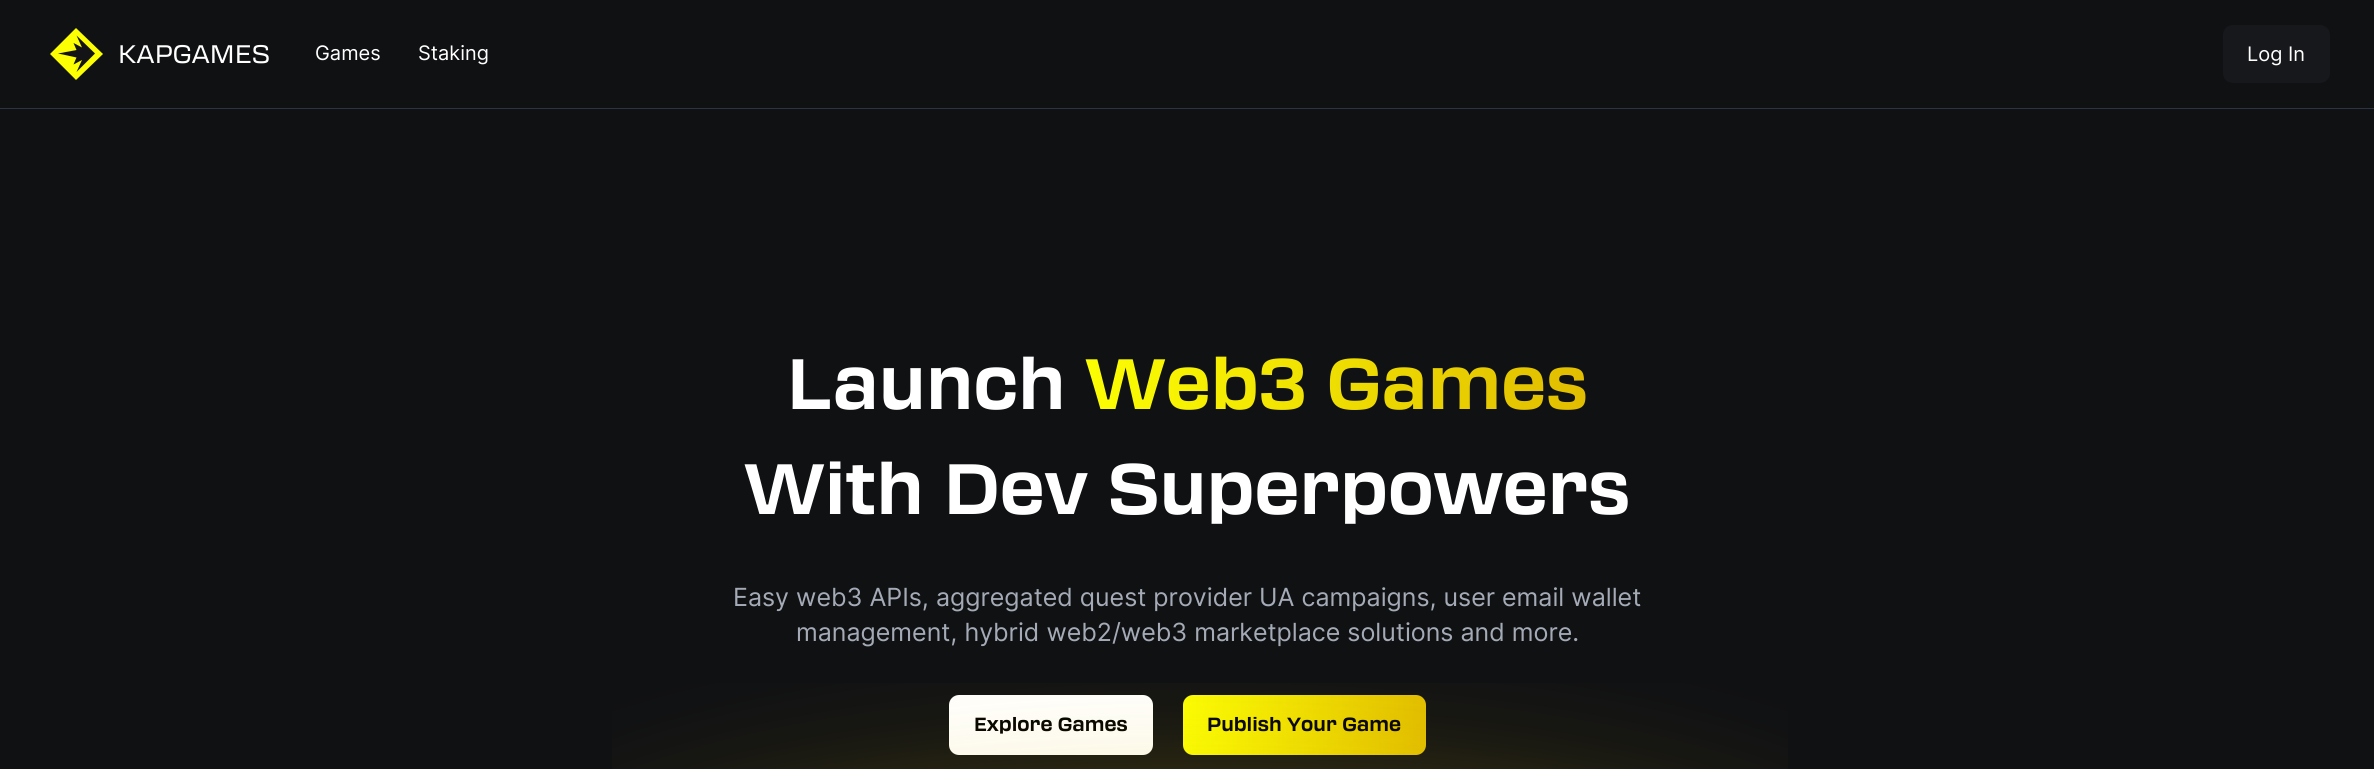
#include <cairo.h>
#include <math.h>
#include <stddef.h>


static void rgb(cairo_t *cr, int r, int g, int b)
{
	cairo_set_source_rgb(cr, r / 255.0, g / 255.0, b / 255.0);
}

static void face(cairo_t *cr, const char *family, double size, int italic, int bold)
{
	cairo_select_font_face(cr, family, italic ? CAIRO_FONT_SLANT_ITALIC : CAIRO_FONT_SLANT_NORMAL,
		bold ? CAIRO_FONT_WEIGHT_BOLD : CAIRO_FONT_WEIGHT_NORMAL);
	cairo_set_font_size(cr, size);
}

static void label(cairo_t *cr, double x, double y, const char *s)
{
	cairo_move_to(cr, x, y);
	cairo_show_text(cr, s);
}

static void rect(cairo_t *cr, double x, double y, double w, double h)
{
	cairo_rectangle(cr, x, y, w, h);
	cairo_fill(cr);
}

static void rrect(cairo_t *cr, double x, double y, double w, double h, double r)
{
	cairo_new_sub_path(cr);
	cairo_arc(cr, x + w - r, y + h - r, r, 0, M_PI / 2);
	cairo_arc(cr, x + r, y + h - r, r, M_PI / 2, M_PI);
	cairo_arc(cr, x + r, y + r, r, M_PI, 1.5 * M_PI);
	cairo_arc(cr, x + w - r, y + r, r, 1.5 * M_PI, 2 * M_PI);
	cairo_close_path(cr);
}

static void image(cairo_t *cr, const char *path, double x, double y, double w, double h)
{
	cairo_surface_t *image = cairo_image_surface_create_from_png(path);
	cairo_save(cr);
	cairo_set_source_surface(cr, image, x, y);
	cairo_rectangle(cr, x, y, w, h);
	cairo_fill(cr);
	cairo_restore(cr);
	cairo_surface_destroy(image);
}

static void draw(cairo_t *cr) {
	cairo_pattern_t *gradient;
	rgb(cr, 16, 17, 19);
	cairo_paint(cr);
	rgb(cr, 46, 51, 67);
	rect(cr, 0, 108, 2374, 1);
	rgb(cr, 252, 254, 3);
	cairo_new_path(cr);
	cairo_move_to(cr, 76, 28);
	cairo_line_to(cr, 50, 54);
	cairo_line_to(cr, 76, 80);
	cairo_line_to(cr, 103, 54);
	cairo_close_path(cr);
	cairo_fill(cr);
	rgb(cr, 20, 20, 22);
	cairo_new_path(cr);
	cairo_move_to(cr, 95, 53.5);
	cairo_line_to(cr, 76.5, 35.5);
	cairo_line_to(cr, 82, 47.5);
	cairo_line_to(cr, 73.5, 43);
	cairo_line_to(cr, 76.5, 50);
	cairo_line_to(cr, 58, 53.5);
	cairo_line_to(cr, 76.5, 57.5);
	cairo_line_to(cr, 73.5, 64.5);
	cairo_line_to(cr, 82, 60);
	cairo_line_to(cr, 76.5, 72);
	cairo_close_path(cr);
	cairo_fill(cr);
	face(cr, "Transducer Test", 25, 0, 0);
	rgb(cr, 255, 255, 255);
	label(cr, 118, 63, "KAPGAMES");
	face(cr, "Inter", 20, 0, 0);
	label(cr, 315, 60, "Games");
	label(cr, 418, 60, "Staking");
	rgb(cr, 23, 24, 27);
	rrect(cr, 2223, 25, 107, 58, 10);
	cairo_fill(cr);
	rgb(cr, 255, 255, 255);
	label(cr, 2247, 61, "Log In");
	face(cr, "Transducer Test", 70, 0, 1);
	label(cr, 787, 409, "Launch");
	gradient = cairo_pattern_create_linear(1085, 384, 1588, 384);
	cairo_pattern_add_color_stop_rgba(gradient, 0, 0.988, 0.996, 0.012, 1);
	cairo_pattern_add_color_stop_rgba(gradient, 1, 0.882, 0.741, 0, 1);
	cairo_set_source(cr, gradient);
	cairo_pattern_destroy(gradient);
	label(cr, 1085, 409, "Web3 Games");
	rgb(cr, 255, 255, 255);
	label(cr, 744, 514, "With Dev Superpowers");
	face(cr, "Inter", 25, 0, 0);
	rgb(cr, 164, 171, 182);
	label(cr, 733, 606, "Easy web3 APIs, aggregated quest provider UA campaigns, user email wallet");
	label(cr, 796, 641, "management, hybrid web2/web3 marketplace solutions and more.");
	rgb(cr, 255, 255, 255);
	rrect(cr, 949, 695, 204, 60, 10);
	cairo_fill(cr);
	face(cr, "Transducer Test", 18.75, 0, 1);
	rgb(cr, 0, 0, 0);
	label(cr, 974, 731, "Explore Games");
	gradient = cairo_pattern_create_linear(1183, 725, 1426, 725);
	cairo_pattern_add_color_stop_rgba(gradient, 0, 0.988, 0.996, 0.012, 1);
	cairo_pattern_add_color_stop_rgba(gradient, 1, 0.882, 0.741, 0, 1);
	cairo_set_source(cr, gradient);
	cairo_pattern_destroy(gradient);
	rrect(cr, 1183, 695, 243, 60, 10);
	cairo_fill(cr);
	rgb(cr, 0, 0, 0);
	label(cr, 1207, 731, "Publish Your Game");
	image(cr, "image0.png", 612, 683, 1176, 86);
}

int main(void) {
	cairo_surface_t *surface = cairo_image_surface_create(CAIRO_FORMAT_RGB24, 2374, 769);
	cairo_t *cr = cairo_create(surface);
	cairo_font_options_t *options = cairo_font_options_create();
	cairo_font_options_set_hint_metrics(options, CAIRO_HINT_METRICS_OFF);
	cairo_font_options_set_hint_style(options, CAIRO_HINT_STYLE_NONE);
	cairo_set_font_options(cr, options);
	cairo_set_miter_limit(cr, 4);
	draw(cr);
	cairo_surface_write_to_png(surface, "render.png");
	cairo_font_options_destroy(options);
	cairo_destroy(cr);
	cairo_surface_destroy(surface);
	return 0;
}
